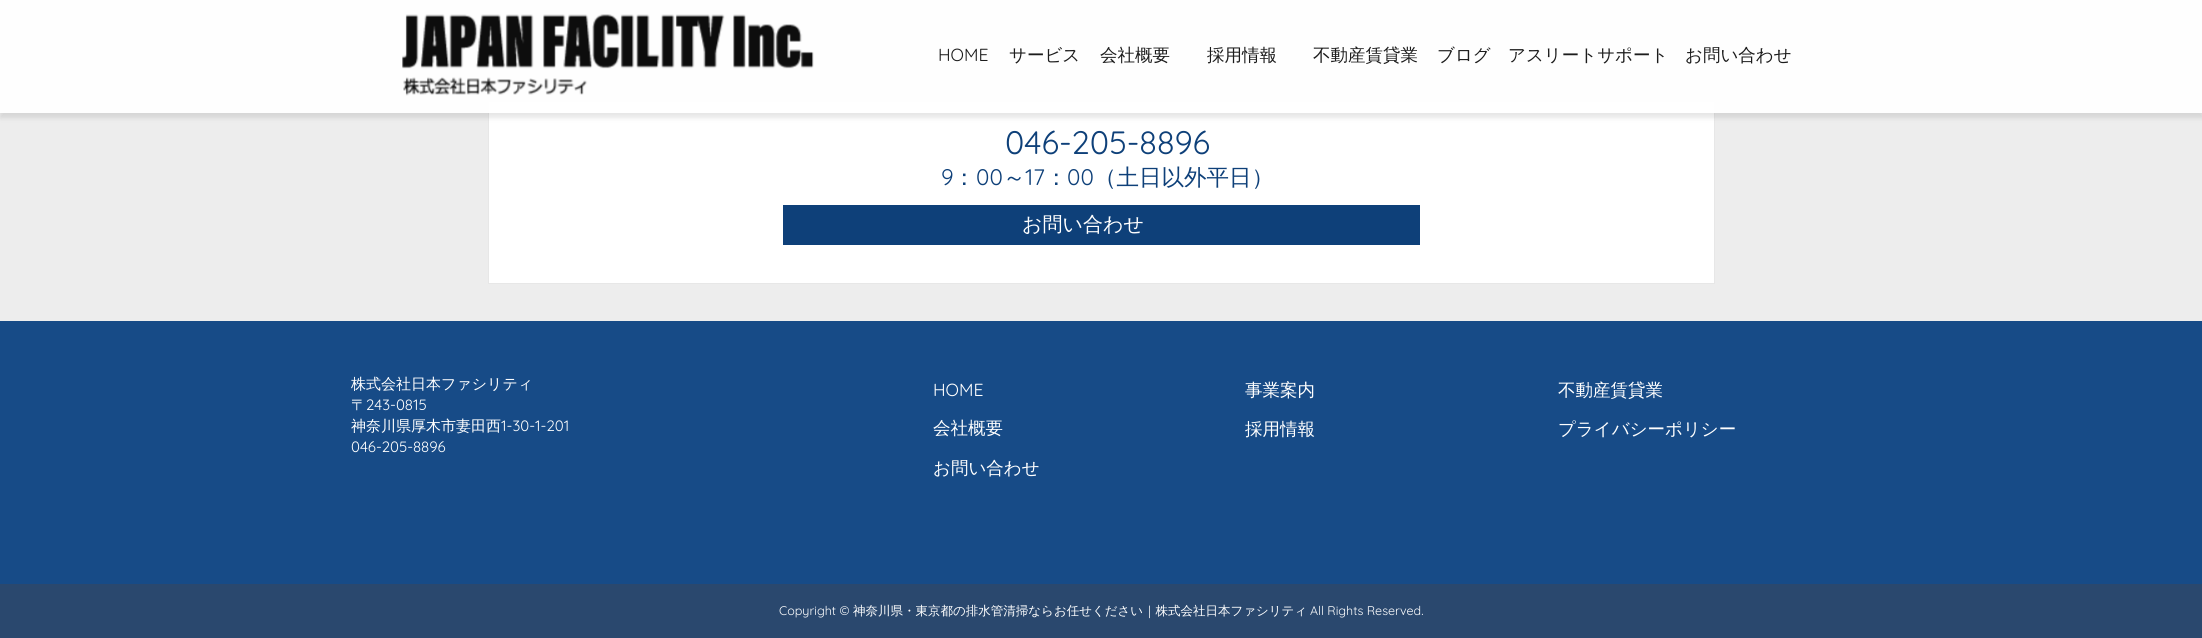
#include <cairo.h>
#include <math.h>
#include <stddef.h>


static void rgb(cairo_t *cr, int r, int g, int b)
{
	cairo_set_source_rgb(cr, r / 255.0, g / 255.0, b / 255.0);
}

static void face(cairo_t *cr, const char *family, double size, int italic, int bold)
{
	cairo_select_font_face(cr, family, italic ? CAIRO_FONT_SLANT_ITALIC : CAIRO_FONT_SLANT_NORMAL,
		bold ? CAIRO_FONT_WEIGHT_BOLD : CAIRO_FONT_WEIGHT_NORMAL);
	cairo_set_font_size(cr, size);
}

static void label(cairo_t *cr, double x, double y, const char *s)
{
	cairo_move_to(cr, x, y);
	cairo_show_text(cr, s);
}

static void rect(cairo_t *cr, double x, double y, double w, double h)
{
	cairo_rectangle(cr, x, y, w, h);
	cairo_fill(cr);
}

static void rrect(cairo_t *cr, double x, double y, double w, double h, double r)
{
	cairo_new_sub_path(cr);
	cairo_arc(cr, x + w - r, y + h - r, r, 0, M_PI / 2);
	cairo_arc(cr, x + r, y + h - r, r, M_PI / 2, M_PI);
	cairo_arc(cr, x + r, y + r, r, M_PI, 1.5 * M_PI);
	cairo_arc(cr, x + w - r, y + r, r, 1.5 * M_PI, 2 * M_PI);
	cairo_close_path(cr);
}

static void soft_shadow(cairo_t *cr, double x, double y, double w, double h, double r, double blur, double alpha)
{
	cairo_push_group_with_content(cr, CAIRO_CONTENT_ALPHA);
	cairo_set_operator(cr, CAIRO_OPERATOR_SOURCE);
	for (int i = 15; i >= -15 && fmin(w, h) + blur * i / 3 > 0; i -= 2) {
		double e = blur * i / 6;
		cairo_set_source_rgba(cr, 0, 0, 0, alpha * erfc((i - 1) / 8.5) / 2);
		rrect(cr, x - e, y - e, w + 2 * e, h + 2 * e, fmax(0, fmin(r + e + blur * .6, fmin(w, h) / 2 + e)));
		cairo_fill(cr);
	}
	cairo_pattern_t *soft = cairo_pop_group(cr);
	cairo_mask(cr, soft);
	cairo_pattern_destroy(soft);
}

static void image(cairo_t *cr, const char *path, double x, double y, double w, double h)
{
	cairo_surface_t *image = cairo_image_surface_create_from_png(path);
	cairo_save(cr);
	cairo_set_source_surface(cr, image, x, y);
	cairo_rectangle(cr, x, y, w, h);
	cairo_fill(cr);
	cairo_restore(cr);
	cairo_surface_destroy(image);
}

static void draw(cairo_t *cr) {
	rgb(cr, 23, 75, 135);
	cairo_paint(cr);
	rgb(cr, 237, 237, 237);
	rect(cr, 0, 0, 2202, 321);
	rgb(cr, 255, 255, 255);
	cairo_rectangle(cr, 488.5, 101.5, 1226, 182);
	cairo_fill_preserve(cr);
	rgb(cr, 231, 231, 231);
	cairo_set_line_width(cr, 1);
	cairo_stroke(cr);
	cairo_save(cr);
	cairo_set_fill_rule(cr, CAIRO_FILL_RULE_EVEN_ODD);
	cairo_new_path(cr);
	cairo_move_to(cr, 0, 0);
	cairo_line_to(cr, 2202, 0);
	cairo_line_to(cr, 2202, 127);
	cairo_line_to(cr, 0, 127);
	cairo_close_path(cr);
	cairo_move_to(cr, 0, 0);
	cairo_line_to(cr, 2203, 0);
	cairo_line_to(cr, 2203, 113);
	cairo_line_to(cr, 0, 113);
	cairo_close_path(cr);
	cairo_clip(cr);
	rgb(cr, 0, 0, 0);
	soft_shadow(cr, 0, 5, 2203, 113, 0, 2.5, 0.1);
	cairo_restore(cr);
	cairo_set_source_rgba(cr, 1, 1, 1, 0.95);
	rect(cr, 0, 0, 2202, 113);
	image(cr, "image0.png", 402, 14, 412, 82);
	face(cr, "Quicksand", 17.5, 0, 0);
	rgb(cr, 28, 28, 28);
	label(cr, 938, 61, "HOME");
	face(cr, "WenQuanYi Zen Hei Medium", 17.5, 0, 0);
	label(cr, 1009, 61, "サービス");
	label(cr, 1100, 61, "会社概要");
	label(cr, 1207, 61, "採用情報");
	label(cr, 1313, 61, "不動産賃貸業");
	label(cr, 1437, 61, "ブログ");
	label(cr, 1508, 61, "アスリートサポート");
	label(cr, 1685, 61, "お問い合わせ");
	face(cr, "Quicksand", 32.5, 0, 0);
	rgb(cr, 14, 64, 121);
	label(cr, 1005, 154, "046-205-8896");
	face(cr, "Quicksand", 22.5, 0, 0);
	label(cr, 941, 185, "9");
	face(cr, "WenQuanYi Zen Hei Medium", 22.5, 0, 0);
	label(cr, 953, 185, "：");
	face(cr, "Quicksand", 22.5, 0, 0);
	label(cr, 976, 185, "00");
	face(cr, "WenQuanYi Zen Hei Medium", 22.5, 0, 0);
	label(cr, 1003, 185, "～");
	face(cr, "Quicksand", 22.5, 0, 0);
	label(cr, 1025, 185, "17");
	face(cr, "WenQuanYi Zen Hei Medium", 22.5, 0, 0);
	label(cr, 1045, 185, "：");
	face(cr, "Quicksand", 22.5, 0, 0);
	label(cr, 1067, 185, "00");
	face(cr, "WenQuanYi Zen Hei Medium", 22.5, 0, 0);
	label(cr, 1094, 185, "（土日以外平日）");
	rect(cr, 783, 205, 637, 40);
	face(cr, "WenQuanYi Zen Hei Medium", 20, 0, 0);
	rgb(cr, 255, 255, 255);
	label(cr, 1022, 231, "お問い合わせ");
	face(cr, "WenQuanYi Zen Hei Medium", 15, 0, 0);
	label(cr, 351, 389, "株式会社日本ファシリティ");
	label(cr, 351, 410, "〒");
	face(cr, "Quicksand", 15, 0, 0);
	label(cr, 366, 410, "243-0815");
	face(cr, "WenQuanYi Zen Hei Medium", 15, 0, 0);
	label(cr, 351, 431, "神奈川県厚木市妻田西");
	face(cr, "Quicksand", 15, 0, 0);
	label(cr, 501, 431, "1-30-1-201");
	label(cr, 351, 452, "046-205-8896");
	face(cr, "Quicksand", 17.5, 0, 0);
	label(cr, 933, 396, "HOME");
	face(cr, "WenQuanYi Zen Hei Medium", 17.5, 0, 0);
	label(cr, 933, 434, "会社概要");
	label(cr, 1245, 396, "事業案内");
	label(cr, 1245, 435, "採用情報");
	label(cr, 1558, 396, "不動産賃貸業");
	label(cr, 1558, 435, "プライバシーポリシー");
	label(cr, 933, 474, "お問い合わせ");
	rgb(cr, 42, 72, 110);
	rect(cr, 0, 584, 2202, 54);
	face(cr, "Quicksand", 12.5, 0, 0);
	rgb(cr, 255, 255, 255);
	label(cr, 779, 615, "Copyright ©");
	face(cr, "WenQuanYi Zen Hei Medium", 12.5, 0, 0);
	label(cr, 853, 615, "神奈川県・東京都の排水管清掃ならお任せください｜株式会社日本ファシリティ");
	face(cr, "Quicksand", 12.5, 0, 0);
	label(cr, 1310, 615, "All Rights Reserved.");
}

int main(void) {
	cairo_surface_t *surface = cairo_image_surface_create(CAIRO_FORMAT_RGB24, 2202, 638);
	cairo_t *cr = cairo_create(surface);
	cairo_font_options_t *options = cairo_font_options_create();
	cairo_font_options_set_hint_metrics(options, CAIRO_HINT_METRICS_OFF);
	cairo_font_options_set_hint_style(options, CAIRO_HINT_STYLE_NONE);
	cairo_set_font_options(cr, options);
	cairo_set_miter_limit(cr, 4);
	draw(cr);
	cairo_surface_write_to_png(surface, "render.png");
	cairo_font_options_destroy(options);
	cairo_destroy(cr);
	cairo_surface_destroy(surface);
	return 0;
}
